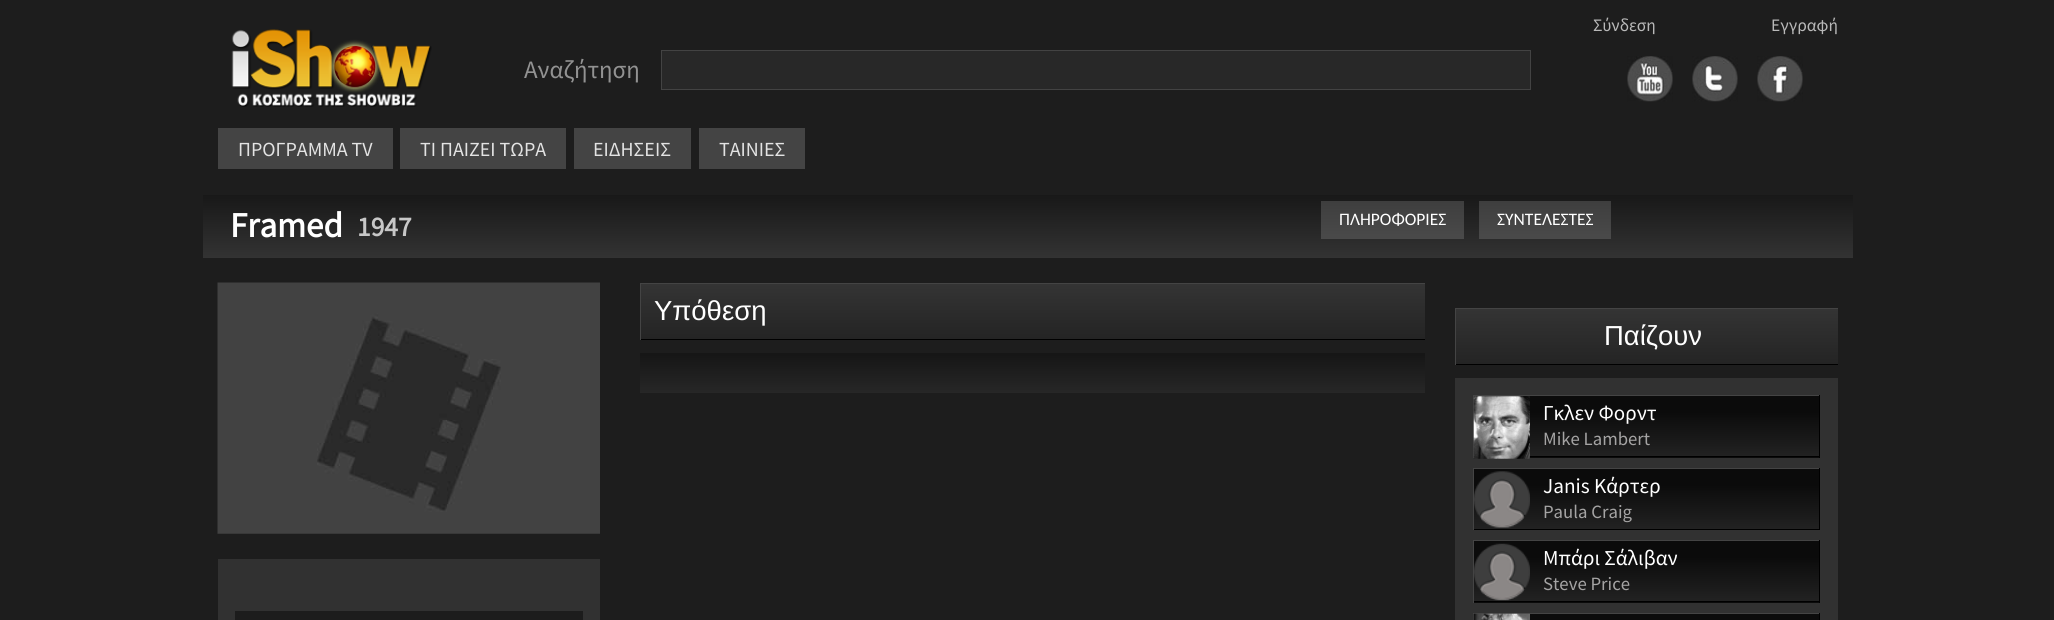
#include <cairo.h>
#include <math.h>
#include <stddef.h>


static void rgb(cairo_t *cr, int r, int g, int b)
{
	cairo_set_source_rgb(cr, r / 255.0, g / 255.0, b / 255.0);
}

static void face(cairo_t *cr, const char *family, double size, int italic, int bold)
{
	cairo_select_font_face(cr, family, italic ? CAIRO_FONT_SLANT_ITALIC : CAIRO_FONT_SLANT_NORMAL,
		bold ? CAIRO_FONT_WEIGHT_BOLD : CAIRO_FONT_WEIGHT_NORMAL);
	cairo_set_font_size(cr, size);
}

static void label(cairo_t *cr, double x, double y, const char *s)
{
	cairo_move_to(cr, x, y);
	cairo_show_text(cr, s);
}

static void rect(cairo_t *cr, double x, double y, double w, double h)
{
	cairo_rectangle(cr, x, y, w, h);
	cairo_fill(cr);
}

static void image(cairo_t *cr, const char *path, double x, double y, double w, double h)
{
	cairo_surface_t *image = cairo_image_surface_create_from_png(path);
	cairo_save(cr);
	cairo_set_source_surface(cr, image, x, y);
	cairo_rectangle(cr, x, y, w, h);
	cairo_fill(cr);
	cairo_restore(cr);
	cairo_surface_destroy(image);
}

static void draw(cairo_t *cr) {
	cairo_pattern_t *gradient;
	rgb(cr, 29, 29, 29);
	cairo_paint(cr);
	face(cr, "Source Sans Pro", 17.5, 0, 0);
	rgb(cr, 185, 185, 185);
	label(cr, 1593, 31, "Σύνδεση");
	label(cr, 1771, 31, "Εγγραφή");
	image(cr, "image0.png", 1627, 56, 46, 46);
	image(cr, "image1.png", 1692, 56, 46, 46);
	image(cr, "image2.png", 1757, 56, 46, 46);
	image(cr, "image3.png", 231, 29, 201, 78);
	face(cr, "Source Sans Pro", 25, 0, 0);
	rgb(cr, 146, 146, 146);
	label(cr, 524, 78, "Αναζήτηση");
	rgb(cr, 40, 40, 40);
	cairo_rectangle(cr, 661.5, 50.5, 869, 39);
	cairo_fill_preserve(cr);
	rgb(cr, 67, 67, 67);
	cairo_set_line_width(cr, 1);
	cairo_stroke(cr);
	rgb(cr, 68, 68, 68);
	rect(cr, 218, 128, 175, 41);
	face(cr, "Source Sans Pro", 20, 0, 0);
	rgb(cr, 227, 227, 227);
	label(cr, 238, 156, "ΠΡΟΓΡΑΜΜΑ TV");
	rgb(cr, 68, 68, 68);
	rect(cr, 400, 128, 166, 41);
	rgb(cr, 227, 227, 227);
	label(cr, 420, 156, "ΤΙ ΠΑΙΖΕΙ ΤΩΡΑ");
	rgb(cr, 68, 68, 68);
	rect(cr, 574, 128, 117, 41);
	rgb(cr, 227, 227, 227);
	label(cr, 593, 156, "ΕΙΔΗΣΕΙΣ");
	rgb(cr, 68, 68, 68);
	rect(cr, 699, 128, 106, 41);
	rgb(cr, 227, 227, 227);
	label(cr, 719, 156, "ΤΑΙΝΙΕΣ");
	gradient = cairo_pattern_create_linear(1028, 195, 1028, 258);
	cairo_pattern_add_color_stop_rgba(gradient, 0, 0.094, 0.094, 0.094, 1);
	cairo_pattern_add_color_stop_rgba(gradient, 1, 0.2, 0.2, 0.2, 1);
	cairo_set_source(cr, gradient);
	cairo_pattern_destroy(gradient);
	rect(cr, 203, 195, 1650, 63);
	face(cr, "Source Sans Pro", 35, 0, 1);
	rgb(cr, 255, 255, 255);
	label(cr, 230, 237, "Framed");
	face(cr, "Source Sans Pro", 27.5, 0, 1);
	rgb(cr, 199, 199, 199);
	label(cr, 357, 236, "1947");
	gradient = cairo_pattern_create_linear(1393, 201, 1393, 239);
	cairo_pattern_add_color_stop_rgba(gradient, 0, 0.243, 0.243, 0.243, 1);
	cairo_pattern_add_color_stop_rgba(gradient, 1, 0.29, 0.29, 0.29, 1);
	cairo_set_source(cr, gradient);
	cairo_pattern_destroy(gradient);
	rect(cr, 1321, 201, 143, 38);
	face(cr, "Carlito", 17.5, 0, 0);
	rgb(cr, 255, 255, 255);
	label(cr, 1339, 225, "ΠΛΗΡΟΦΟΡΙΕΣ");
	gradient = cairo_pattern_create_linear(1545, 201, 1545, 239);
	cairo_pattern_add_color_stop_rgba(gradient, 0, 0.243, 0.243, 0.243, 1);
	cairo_pattern_add_color_stop_rgba(gradient, 1, 0.29, 0.29, 0.29, 1);
	cairo_set_source(cr, gradient);
	cairo_pattern_destroy(gradient);
	rect(cr, 1479, 201, 132, 38);
	rgb(cr, 255, 255, 255);
	label(cr, 1497, 225, "ΣΥΝΤΕΛΕΣΤΕΣ");
	image(cr, "image4.png", 217, 282, 383, 252);
	rgb(cr, 49, 49, 49);
	rect(cr, 218, 559, 382, 61);
	rgb(cr, 28, 28, 28);
	rect(cr, 235, 611, 348, 9);
	gradient = cairo_pattern_create_linear(1033, 284, 1033, 339);
	cairo_pattern_add_color_stop_rgba(gradient, 0, 0.204, 0.204, 0.204, 1);
	cairo_pattern_add_color_stop_rgba(gradient, 1, 0.141, 0.141, 0.141, 1);
	cairo_set_source(cr, gradient);
	cairo_pattern_destroy(gradient);
	rect(cr, 641, 284, 784, 55);
	rgb(cr, 68, 68, 68);
	rect(cr, 640, 283, 785, 1);
	rgb(cr, 0, 0, 0);
	rect(cr, 640, 339, 785, 1);
	rgb(cr, 68, 68, 68);
	rect(cr, 640, 283, 1, 57);
	face(cr, "Liberation Sans", 27.5, 0, 0);
	rgb(cr, 255, 255, 255);
	label(cr, 654, 320, "Υπόθεση");
	gradient = cairo_pattern_create_linear(1033, 352, 1033, 393);
	cairo_pattern_add_color_stop_rgba(gradient, 0, 0.082, 0.082, 0.082, 1);
	cairo_pattern_add_color_stop_rgba(gradient, 1, 0.153, 0.153, 0.153, 1);
	cairo_set_source(cr, gradient);
	cairo_pattern_destroy(gradient);
	rect(cr, 640, 353, 785, 40);
	gradient = cairo_pattern_create_linear(1647, 309, 1647, 364);
	cairo_pattern_add_color_stop_rgba(gradient, 0, 0.204, 0.204, 0.204, 1);
	cairo_pattern_add_color_stop_rgba(gradient, 1, 0.141, 0.141, 0.141, 1);
	cairo_set_source(cr, gradient);
	cairo_pattern_destroy(gradient);
	rect(cr, 1456, 309, 382, 55);
	rgb(cr, 68, 68, 68);
	rect(cr, 1455, 308, 383, 1);
	rgb(cr, 0, 0, 0);
	rect(cr, 1455, 364, 383, 1);
	rgb(cr, 68, 68, 68);
	rect(cr, 1455, 308, 1, 57);
	rgb(cr, 255, 255, 255);
	label(cr, 1604, 345, "Παίζουν");
	rgb(cr, 49, 49, 49);
	rect(cr, 1455, 378, 383, 242);
	gradient = cairo_pattern_create_linear(1646, 396, 1646, 456);
	cairo_pattern_add_color_stop_rgba(gradient, 0.26, 0.043, 0.043, 0.043, 1);
	cairo_pattern_add_color_stop_rgba(gradient, 1, 0.133, 0.133, 0.133, 1);
	cairo_set_source(cr, gradient);
	cairo_pattern_destroy(gradient);
	rect(cr, 1474, 396, 345, 60);
	gradient = cairo_pattern_create_linear(1646, 456, 1646, 516);
	cairo_pattern_add_color_stop_rgba(gradient, 0.26, 0.043, 0.043, 0.043, 1);
	cairo_pattern_add_color_stop_rgba(gradient, 1, 0.133, 0.133, 0.133, 1);
	cairo_set_source(cr, gradient);
	cairo_pattern_destroy(gradient);
	rect(cr, 1530, 457, 290, 1);
	rgb(cr, 68, 68, 68);
	rect(cr, 1473, 395, 347, 1);
	rgb(cr, 0, 0, 0);
	rect(cr, 1819, 395, 1, 63);
	rect(cr, 1530, 456, 290, 1);
	rgb(cr, 68, 68, 68);
	rect(cr, 1473, 395, 1, 63);
	image(cr, "image5.png", 1473, 396, 57, 63);
	face(cr, "Source Sans Pro", 21.25, 0, 0);
	rgb(cr, 255, 255, 255);
	label(cr, 1543, 420, "Γκλεν Φορντ");
	face(cr, "Source Sans Pro", 18.75, 0, 0);
	rgb(cr, 165, 164, 164);
	label(cr, 1543, 445, "Mike Lambert");
	gradient = cairo_pattern_create_linear(1646, 469, 1646, 529);
	cairo_pattern_add_color_stop_rgba(gradient, 0.26, 0.043, 0.043, 0.043, 1);
	cairo_pattern_add_color_stop_rgba(gradient, 1, 0.133, 0.133, 0.133, 1);
	cairo_set_source(cr, gradient);
	cairo_pattern_destroy(gradient);
	rect(cr, 1474, 469, 345, 60);
	rgb(cr, 68, 68, 68);
	rect(cr, 1473, 468, 347, 1);
	rgb(cr, 0, 0, 0);
	rect(cr, 1819, 468, 1, 62);
	rect(cr, 1473, 529, 347, 1);
	rgb(cr, 68, 68, 68);
	rect(cr, 1473, 468, 1, 62);
	image(cr, "image6.png", 1474, 471, 56, 57);
	face(cr, "Source Sans Pro", 21.25, 0, 0);
	rgb(cr, 255, 255, 255);
	label(cr, 1543, 493, "Janis Κάρτερ");
	face(cr, "Source Sans Pro", 18.75, 0, 0);
	rgb(cr, 165, 164, 164);
	label(cr, 1543, 518, "Paula Craig");
	gradient = cairo_pattern_create_linear(1646, 541, 1646, 601);
	cairo_pattern_add_color_stop_rgba(gradient, 0.26, 0.043, 0.043, 0.043, 1);
	cairo_pattern_add_color_stop_rgba(gradient, 1, 0.133, 0.133, 0.133, 1);
	cairo_set_source(cr, gradient);
	cairo_pattern_destroy(gradient);
	rect(cr, 1474, 541, 345, 60);
	gradient = cairo_pattern_create_linear(1646, 601, 1646, 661);
	cairo_pattern_add_color_stop_rgba(gradient, 0.26, 0.043, 0.043, 0.043, 1);
	cairo_pattern_add_color_stop_rgba(gradient, 1, 0.133, 0.133, 0.133, 1);
	cairo_set_source(cr, gradient);
	cairo_pattern_destroy(gradient);
	rect(cr, 1473, 602, 347, 1);
	rgb(cr, 68, 68, 68);
	rect(cr, 1473, 540, 347, 1);
	rgb(cr, 0, 0, 0);
	rect(cr, 1819, 540, 1, 63);
	rect(cr, 1473, 601, 347, 1);
	rgb(cr, 68, 68, 68);
	rect(cr, 1473, 540, 1, 63);
	image(cr, "image7.png", 1474, 543, 56, 58);
	face(cr, "Source Sans Pro", 21.25, 0, 0);
	rgb(cr, 255, 255, 255);
	label(cr, 1543, 565, "Μπάρι Σάλιβαν");
	face(cr, "Source Sans Pro", 18.75, 0, 0);
	rgb(cr, 165, 164, 164);
	label(cr, 1543, 590, "Steve Price");
	gradient = cairo_pattern_create_linear(1646, 614, 1646, 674);
	cairo_pattern_add_color_stop_rgba(gradient, 0.26, 0.043, 0.043, 0.043, 1);
	cairo_pattern_add_color_stop_rgba(gradient, 1, 0.133, 0.133, 0.133, 1);
	cairo_set_source(cr, gradient);
	cairo_pattern_destroy(gradient);
	rect(cr, 1530, 614, 290, 6);
	rgb(cr, 68, 68, 68);
	rect(cr, 1473, 613, 347, 1);
	rgb(cr, 0, 0, 0);
	rect(cr, 1819, 613, 1, 7);
	rgb(cr, 68, 68, 68);
	rect(cr, 1473, 613, 1, 7);
	image(cr, "image8.png", 1473, 613, 57, 7);
}

int main(void) {
	cairo_surface_t *surface = cairo_image_surface_create(CAIRO_FORMAT_RGB24, 2054, 620);
	cairo_t *cr = cairo_create(surface);
	cairo_font_options_t *options = cairo_font_options_create();
	cairo_font_options_set_hint_metrics(options, CAIRO_HINT_METRICS_OFF);
	cairo_font_options_set_hint_style(options, CAIRO_HINT_STYLE_NONE);
	cairo_set_font_options(cr, options);
	cairo_set_miter_limit(cr, 4);
	draw(cr);
	cairo_surface_write_to_png(surface, "render.png");
	cairo_font_options_destroy(options);
	cairo_destroy(cr);
	cairo_surface_destroy(surface);
	return 0;
}
